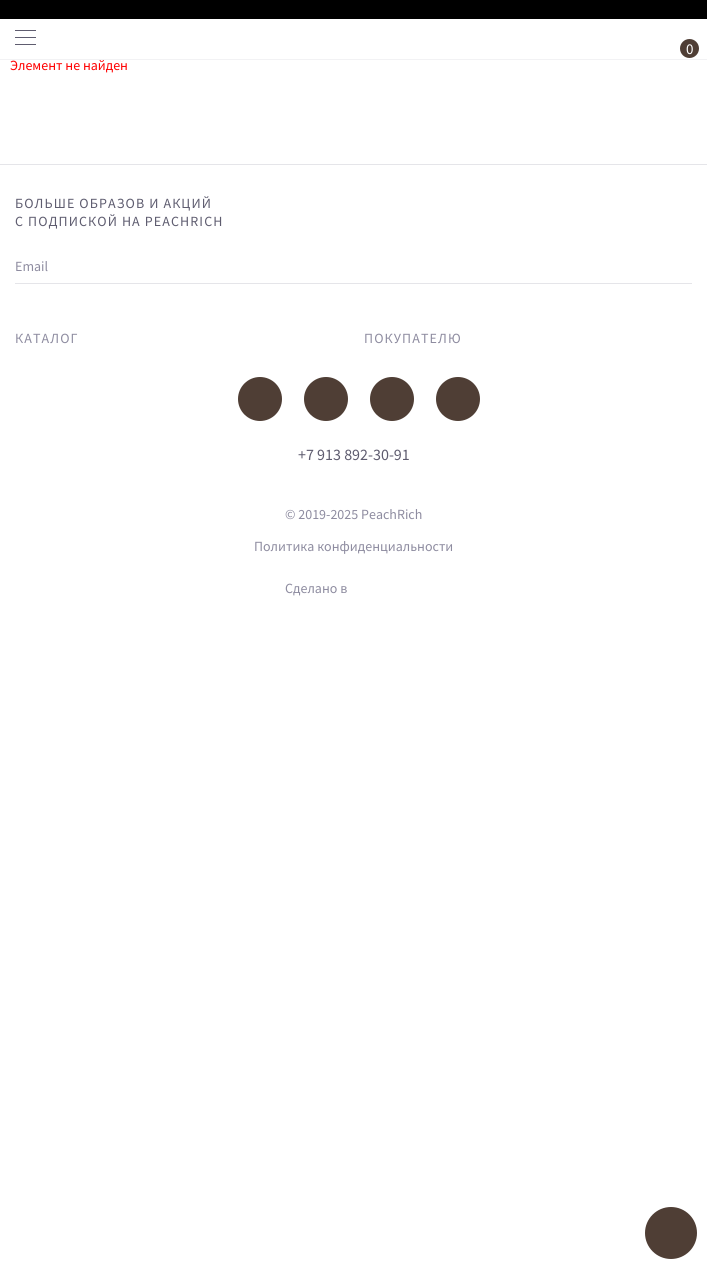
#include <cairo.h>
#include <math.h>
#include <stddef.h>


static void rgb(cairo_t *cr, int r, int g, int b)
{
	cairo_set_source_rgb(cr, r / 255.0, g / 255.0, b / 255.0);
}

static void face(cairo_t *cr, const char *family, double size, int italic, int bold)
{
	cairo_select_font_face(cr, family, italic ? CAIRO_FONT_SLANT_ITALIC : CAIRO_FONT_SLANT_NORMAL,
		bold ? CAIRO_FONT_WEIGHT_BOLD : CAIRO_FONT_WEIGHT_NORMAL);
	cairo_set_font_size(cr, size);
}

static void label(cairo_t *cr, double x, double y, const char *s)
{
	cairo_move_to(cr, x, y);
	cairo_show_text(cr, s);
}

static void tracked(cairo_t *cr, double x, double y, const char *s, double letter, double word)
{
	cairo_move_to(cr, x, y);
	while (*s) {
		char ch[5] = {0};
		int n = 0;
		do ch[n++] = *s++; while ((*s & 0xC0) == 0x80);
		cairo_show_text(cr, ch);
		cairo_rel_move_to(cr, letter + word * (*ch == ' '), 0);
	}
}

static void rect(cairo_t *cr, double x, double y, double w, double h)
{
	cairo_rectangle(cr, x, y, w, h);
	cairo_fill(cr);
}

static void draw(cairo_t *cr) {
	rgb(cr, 255, 255, 255);
	cairo_paint(cr);
	face(cr, "Source Sans Pro", 14, 0, 0);
	rgb(cr, 255, 0, 0);
	label(cr, 10, 70, "Элемент не найден");
	rgb(cr, 242, 242, 244);
	rect(cr, 0, 59, 707, 1);
	rgb(cr, 0, 0, 0);
	rect(cr, 0, 0, 707, 19);
	rgb(cr, 94, 92, 111);
	rect(cr, 15, 30, 21, 1);
	rect(cr, 15, 37, 21, 1);
	rect(cr, 15, 44, 21, 1);
	rgb(cr, 79, 62, 53);
	cairo_new_path(cr);
	cairo_arc(cr, 689.5, 48.5, 9.5, 0, 2 * M_PI);
	cairo_fill(cr);
	face(cr, "Source Sans Pro", 15, 0, 0);
	rgb(cr, 255, 255, 255);
	label(cr, 686, 54, "0");
	rgb(cr, 229, 229, 233);
	rect(cr, 0, 164, 707, 1);
	face(cr, "Source Sans Pro", 14, 0, 0);
	rgb(cr, 94, 92, 111);
	tracked(cr, 15, 208, "БОЛЬШЕ ОБРАЗОВ И АКЦИЙ", 1.1, 0);
	tracked(cr, 15, 226, "С ПОДПИСКОЙ НА PEACHRICH", 1.1, 0);
	rgb(cr, 229, 229, 233);
	rect(cr, 15, 283, 677, 1);
	rgb(cr, 142, 140, 160);
	label(cr, 15, 271, "Email");
	tracked(cr, 15, 343, "КАТАЛОГ", 1.1, 0);
	tracked(cr, 364, 343, "ПОКУПАТЕЛЮ", 1.1, 0);
	rgb(cr, 79, 62, 53);
	cairo_new_path(cr);
	cairo_arc(cr, 260, 399, 22, 0, 2 * M_PI);
	cairo_fill(cr);
	cairo_arc(cr, 326, 399, 22, 0, 2 * M_PI);
	cairo_fill(cr);
	cairo_arc(cr, 392, 399, 22, 0, 2 * M_PI);
	cairo_fill(cr);
	cairo_arc(cr, 458, 399, 22, 0, 2 * M_PI);
	cairo_fill(cr);
	face(cr, "Source Sans Pro", 16, 0, 0);
	rgb(cr, 94, 92, 111);
	label(cr, 298, 460, "+7 913 892-30-91");
	face(cr, "Source Sans Pro", 14, 0, 0);
	rgb(cr, 142, 140, 160);
	label(cr, 285, 519, "© 2019-2025 PeachRich");
	label(cr, 254, 551, "Политика конфиденциальности");
	label(cr, 285, 593, "Сделано в");
	rgb(cr, 79, 62, 53);
	cairo_new_path(cr);
	cairo_arc(cr, 671, 1233, 26, 0, 2 * M_PI);
	cairo_fill(cr);
}

int main(void) {
	cairo_surface_t *surface = cairo_image_surface_create(CAIRO_FORMAT_RGB24, 707, 1274);
	cairo_t *cr = cairo_create(surface);
	cairo_font_options_t *options = cairo_font_options_create();
	cairo_font_options_set_hint_metrics(options, CAIRO_HINT_METRICS_OFF);
	cairo_font_options_set_hint_style(options, CAIRO_HINT_STYLE_NONE);
	cairo_set_font_options(cr, options);
	cairo_set_miter_limit(cr, 4);
	draw(cr);
	cairo_surface_write_to_png(surface, "render.png");
	cairo_font_options_destroy(options);
	cairo_destroy(cr);
	cairo_surface_destroy(surface);
	return 0;
}
